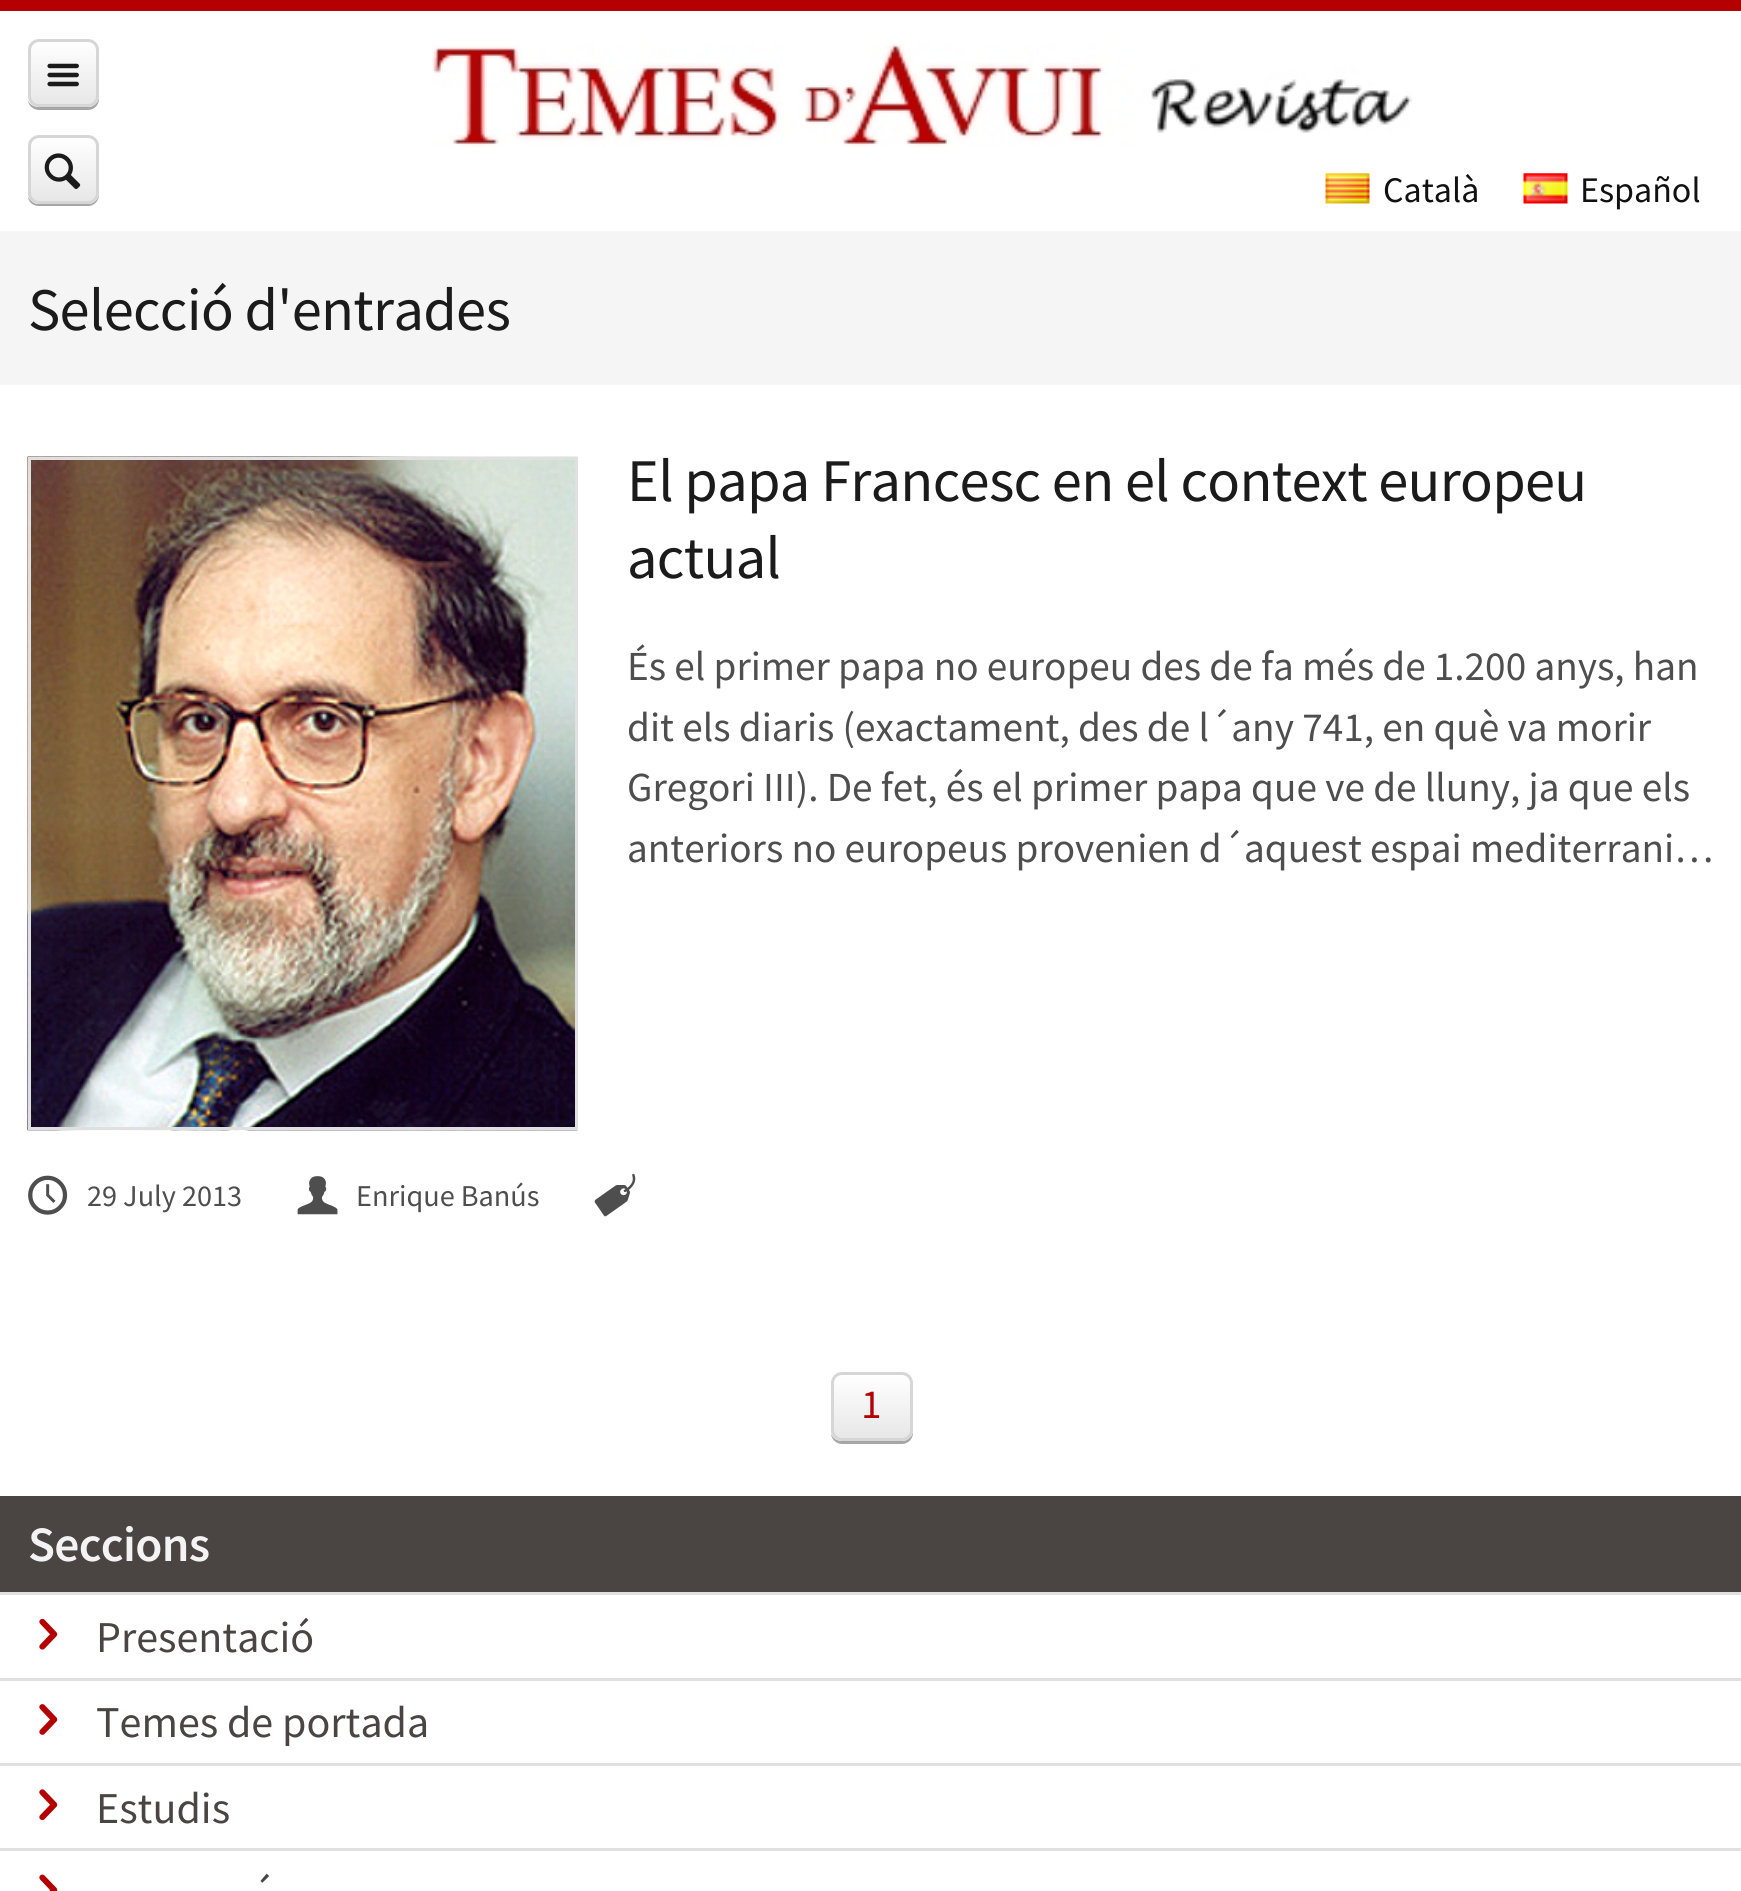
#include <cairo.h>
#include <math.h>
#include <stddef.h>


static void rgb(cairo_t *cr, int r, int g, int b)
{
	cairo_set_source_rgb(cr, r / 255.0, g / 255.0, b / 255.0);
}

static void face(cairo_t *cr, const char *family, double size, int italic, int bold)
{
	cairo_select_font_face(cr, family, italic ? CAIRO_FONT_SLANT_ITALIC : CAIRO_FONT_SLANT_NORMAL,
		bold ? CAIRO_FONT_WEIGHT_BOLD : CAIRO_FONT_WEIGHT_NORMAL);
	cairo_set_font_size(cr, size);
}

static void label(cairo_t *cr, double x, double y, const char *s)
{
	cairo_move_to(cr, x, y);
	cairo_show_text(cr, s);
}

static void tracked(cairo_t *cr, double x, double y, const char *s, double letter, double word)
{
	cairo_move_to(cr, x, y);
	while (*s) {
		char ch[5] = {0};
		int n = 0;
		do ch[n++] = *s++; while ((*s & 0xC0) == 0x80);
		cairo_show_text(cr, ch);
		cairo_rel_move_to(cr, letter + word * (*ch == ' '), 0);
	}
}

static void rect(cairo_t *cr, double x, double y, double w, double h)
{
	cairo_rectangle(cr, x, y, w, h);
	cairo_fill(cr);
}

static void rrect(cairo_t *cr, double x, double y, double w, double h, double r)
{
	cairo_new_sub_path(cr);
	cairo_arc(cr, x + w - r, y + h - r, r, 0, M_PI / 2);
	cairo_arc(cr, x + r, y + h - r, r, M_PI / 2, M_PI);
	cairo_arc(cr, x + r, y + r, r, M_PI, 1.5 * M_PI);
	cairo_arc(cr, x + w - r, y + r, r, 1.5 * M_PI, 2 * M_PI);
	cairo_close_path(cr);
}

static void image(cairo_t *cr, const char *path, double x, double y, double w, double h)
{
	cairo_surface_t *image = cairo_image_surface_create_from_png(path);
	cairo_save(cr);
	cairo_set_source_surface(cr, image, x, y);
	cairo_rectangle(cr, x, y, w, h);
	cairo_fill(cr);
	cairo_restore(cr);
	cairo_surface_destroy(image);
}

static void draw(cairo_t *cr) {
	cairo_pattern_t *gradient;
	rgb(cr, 255, 255, 255);
	cairo_paint(cr);
	rgb(cr, 181, 0, 0);
	rect(cr, 0, 0, 1741, 11);
	rgb(cr, 166, 166, 166);
	cairo_new_path(cr);
	cairo_move_to(cr, 28, 100);
	cairo_curve_to(cr, 28, 105, 33, 110, 39, 110);
	cairo_line_to(cr, 88, 110);
	cairo_curve_to(cr, 94, 110, 99, 105, 99, 99);
	cairo_line_to(cr, 99, 96);
	cairo_curve_to(cr, 99, 102, 94, 107, 88, 107);
	cairo_line_to(cr, 38, 107);
	cairo_curve_to(cr, 34, 107, 29, 104, 28, 100);
	cairo_close_path(cr);
	cairo_fill(cr);
	cairo_save(cr);
	rrect(cr, 28, 39, 71, 68, 11);
	cairo_clip(cr);
	gradient = cairo_pattern_create_linear(63, 41, 63, 105);
	cairo_pattern_add_color_stop_rgba(gradient, 0, 1, 1, 1, 1);
	cairo_pattern_add_color_stop_rgba(gradient, 1, 0.906, 0.906, 0.906, 1);
	cairo_set_source(cr, gradient);
	cairo_pattern_destroy(gradient);
	rect(cr, 28, 41, 71, 64);
	cairo_restore(cr);
	rrect(cr, 29.5, 40.5, 68, 65, 9.5);
	rgb(cr, 214, 214, 214);
	cairo_set_line_width(cr, 3);
	cairo_stroke(cr);
	image(cr, "image0.png", 47, 63, 32, 24);
	rgb(cr, 166, 166, 166);
	cairo_new_path(cr);
	cairo_move_to(cr, 28, 196);
	cairo_curve_to(cr, 28, 202, 33, 206, 39, 206);
	cairo_line_to(cr, 88, 206);
	cairo_curve_to(cr, 94, 206, 99, 201, 99, 195);
	cairo_line_to(cr, 99, 192);
	cairo_curve_to(cr, 99, 199, 94, 204, 88, 204);
	cairo_line_to(cr, 38, 204);
	cairo_curve_to(cr, 34, 204, 29, 200, 28, 196);
	cairo_close_path(cr);
	cairo_fill(cr);
	cairo_save(cr);
	rrect(cr, 28, 135, 71, 69, 11);
	cairo_clip(cr);
	gradient = cairo_pattern_create_linear(63, 138, 63, 201);
	cairo_pattern_add_color_stop_rgba(gradient, 0, 1, 1, 1, 1);
	cairo_pattern_add_color_stop_rgba(gradient, 1, 0.906, 0.906, 0.906, 1);
	cairo_set_source(cr, gradient);
	cairo_pattern_destroy(gradient);
	rect(cr, 28, 138, 71, 63);
	cairo_restore(cr);
	rrect(cr, 29.5, 136.5, 68, 66, 9.5);
	rgb(cr, 214, 214, 214);
	cairo_stroke(cr);
	image(cr, "image1.png", 44, 153, 37, 36);
	image(cr, "image2.png", 432, 44, 980, 103);
	image(cr, "image3.png", 1325, 173, 45, 31);
	face(cr, "Source Sans Pro", 36, 0, 0);
	rgb(cr, 17, 17, 17);
	label(cr, 1383, 202, "Català");
	image(cr, "image4.png", 1523, 173, 45, 31);
	label(cr, 1580, 202, "Español");
	rgb(cr, 245, 245, 245);
	rect(cr, 0, 231, 1741, 154);
	face(cr, "Source Sans Pro", 60.5, 0, 0);
	rgb(cr, 27, 27, 27);
	tracked(cr, 28, 330, "Selecció d'entrades", -0.7, 0);
	image(cr, "image5.png", 27, 456, 551, 675);
	cairo_rectangle(cr, 29.5, 458.5, 547, 670);
	rgb(cr, 224, 224, 224);
	cairo_stroke(cr);
	rgb(cr, 27, 27, 27);
	tracked(cr, 627, 501, "El papa Francesc en el context europeu", -0.7, 0);
	tracked(cr, 627, 578, "actual", -0.7, 0);
	face(cr, "Source Sans Pro", 41.25, 0, 0);
	rgb(cr, 78, 78, 78);
	label(cr, 627, 680, "És el primer papa no europeu des de fa més de 1.200 anys, han");
	label(cr, 627, 741, "dit els diaris (exactament, des de l´any 741, en què va morir");
	label(cr, 627, 801, "Gregori III). De fet, és el primer papa que ve de lluny, ja que els");
	label(cr, 627, 862, "anteriors no europeus provenien d´aquest espai mediterrani…");
	image(cr, "image6.png", 28, 1175, 40, 40);
	face(cr, "Source Sans Pro", 30.25, 0, 0);
	label(cr, 87, 1206, "29 July 2013");
	image(cr, "image7.png", 297, 1176, 41, 39);
	label(cr, 356, 1206, "Enrique Banús");
	image(cr, "image8.png", 594, 1173, 42, 44);
	rgb(cr, 166, 166, 166);
	cairo_new_path(cr);
	cairo_move_to(cr, 831, 1433);
	cairo_curve_to(cr, 831, 1439, 836, 1444, 842, 1444);
	cairo_line_to(cr, 902, 1444);
	cairo_curve_to(cr, 908, 1444, 913, 1439, 913, 1433);
	cairo_line_to(cr, 913, 1430);
	cairo_curve_to(cr, 913, 1436, 908, 1441, 902, 1441);
	cairo_line_to(cr, 842, 1441);
	cairo_curve_to(cr, 837, 1441, 832, 1438, 831, 1433);
	cairo_close_path(cr);
	cairo_fill(cr);
	cairo_save(cr);
	rrect(cr, 831, 1372, 82, 69, 11);
	cairo_clip(cr);
	gradient = cairo_pattern_create_linear(872, 1375, 872, 1438);
	cairo_pattern_add_color_stop_rgba(gradient, 0, 1, 1, 1, 1);
	cairo_pattern_add_color_stop_rgba(gradient, 1, 0.906, 0.906, 0.906, 1);
	cairo_set_source(cr, gradient);
	cairo_pattern_destroy(gradient);
	rect(cr, 831, 1375, 82, 63);
	cairo_restore(cr);
	rrect(cr, 832.5, 1373.5, 79, 66, 9.5);
	rgb(cr, 214, 214, 214);
	cairo_stroke(cr);
	face(cr, "Source Sans Pro", 41.25, 0, 0);
	rgb(cr, 181, 0, 0);
	label(cr, 861, 1418, "1");
	rgb(cr, 74, 68, 67);
	rect(cr, 0, 1496, 1741, 96);
	face(cr, "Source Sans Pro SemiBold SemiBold", 49.5, 0, 0);
	rgb(cr, 243, 243, 243);
	tracked(cr, 28, 1561, "Seccions", -0.7, 0);
	rgb(cr, 224, 224, 224);
	rect(cr, 0, 1592, 1741, 3);
	image(cr, "image9.png", 39, 1618, 19, 32);
	face(cr, "Source Sans Pro", 44, 0, 0);
	rgb(cr, 74, 68, 67);
	label(cr, 96, 1652, "Presentació");
	rgb(cr, 224, 224, 224);
	rect(cr, 0, 1678, 1741, 3);
	image(cr, "image10.png", 39, 1704, 19, 31);
	rgb(cr, 74, 68, 67);
	label(cr, 96, 1737, "Temes de portada");
	rgb(cr, 224, 224, 224);
	rect(cr, 0, 1763, 1741, 3);
	image(cr, "image11.png", 39, 1789, 19, 32);
	rgb(cr, 74, 68, 67);
	label(cr, 96, 1823, "Estudis");
	rgb(cr, 224, 224, 224);
	rect(cr, 0, 1848, 1741, 3);
	image(cr, "image12.png", 39, 1874, 19, 17);
	rgb(cr, 74, 68, 67);
	label(cr, 251, 1908, "´");
}

int main(void) {
	cairo_surface_t *surface = cairo_image_surface_create(CAIRO_FORMAT_RGB24, 1741, 1891);
	cairo_t *cr = cairo_create(surface);
	cairo_font_options_t *options = cairo_font_options_create();
	cairo_font_options_set_hint_metrics(options, CAIRO_HINT_METRICS_OFF);
	cairo_font_options_set_hint_style(options, CAIRO_HINT_STYLE_NONE);
	cairo_set_font_options(cr, options);
	cairo_set_miter_limit(cr, 4);
	draw(cr);
	cairo_surface_write_to_png(surface, "render.png");
	cairo_font_options_destroy(options);
	cairo_destroy(cr);
	cairo_surface_destroy(surface);
	return 0;
}
